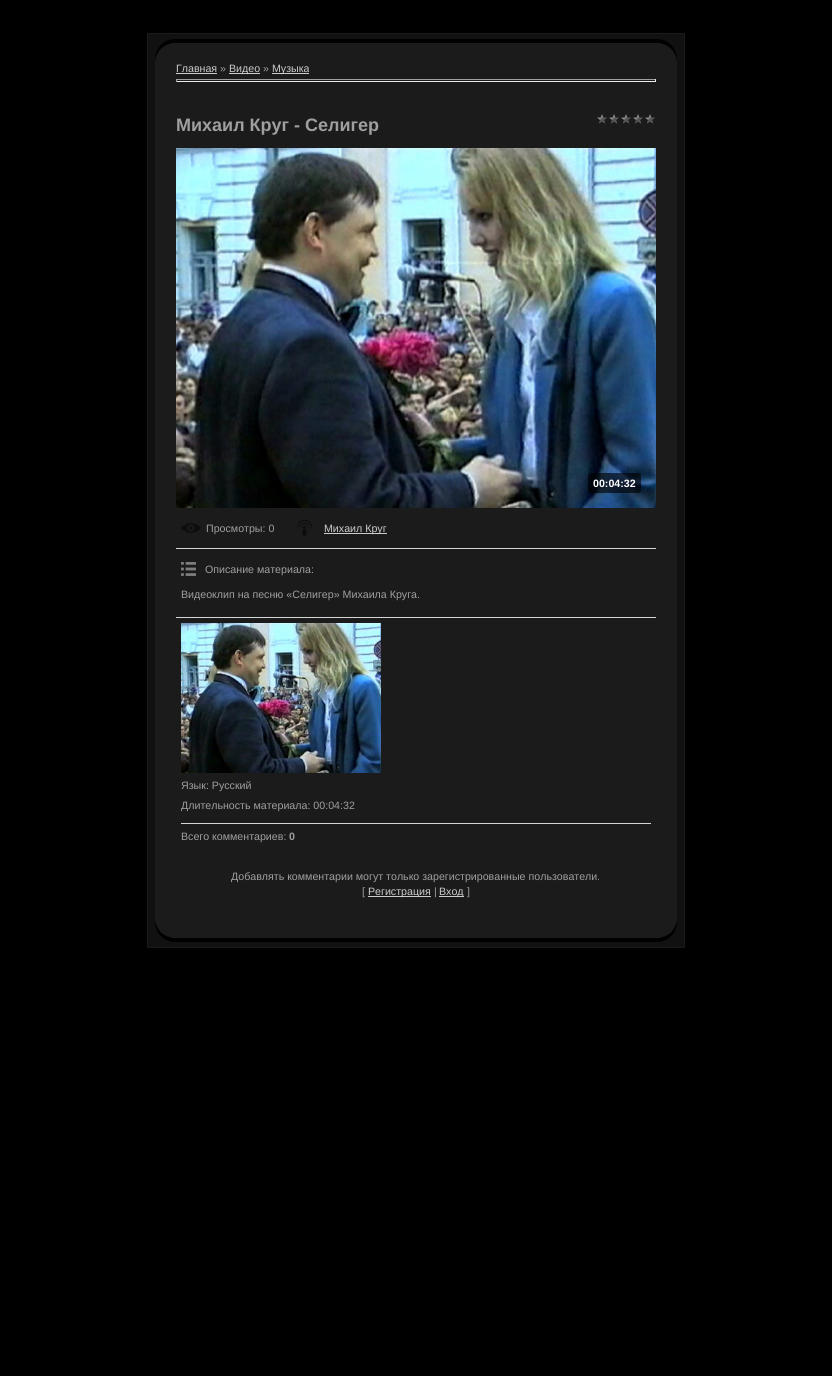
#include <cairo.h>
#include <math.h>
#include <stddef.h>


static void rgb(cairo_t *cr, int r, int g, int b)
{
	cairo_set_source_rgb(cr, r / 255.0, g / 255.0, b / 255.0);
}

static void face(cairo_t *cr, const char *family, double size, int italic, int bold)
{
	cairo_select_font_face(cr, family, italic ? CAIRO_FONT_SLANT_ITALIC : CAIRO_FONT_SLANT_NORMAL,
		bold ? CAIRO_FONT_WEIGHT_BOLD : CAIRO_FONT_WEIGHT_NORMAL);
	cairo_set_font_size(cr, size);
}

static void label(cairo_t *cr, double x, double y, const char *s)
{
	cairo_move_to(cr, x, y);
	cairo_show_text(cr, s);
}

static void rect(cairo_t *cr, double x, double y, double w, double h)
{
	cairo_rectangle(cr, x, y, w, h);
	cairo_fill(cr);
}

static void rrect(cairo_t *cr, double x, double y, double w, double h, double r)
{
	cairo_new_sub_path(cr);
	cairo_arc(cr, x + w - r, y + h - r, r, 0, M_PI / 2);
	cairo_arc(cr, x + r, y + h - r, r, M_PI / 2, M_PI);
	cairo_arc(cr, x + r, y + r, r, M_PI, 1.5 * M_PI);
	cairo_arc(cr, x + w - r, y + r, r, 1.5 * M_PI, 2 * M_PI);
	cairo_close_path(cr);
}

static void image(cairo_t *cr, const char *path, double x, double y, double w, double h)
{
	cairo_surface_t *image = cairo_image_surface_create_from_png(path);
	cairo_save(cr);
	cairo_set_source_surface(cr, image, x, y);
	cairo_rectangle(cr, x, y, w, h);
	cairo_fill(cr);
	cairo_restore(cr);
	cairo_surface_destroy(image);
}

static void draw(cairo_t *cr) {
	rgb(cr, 0, 0, 0);
	cairo_paint(cr);
	image(cr, "image0.png", 147, 33, 29, 29);
	image(cr, "image1.png", 176, 33, 480, 29);
	image(cr, "image2.png", 656, 33, 29, 29);
	image(cr, "image3.png", 147, 62, 29, 857);
	rgb(cr, 27, 27, 27);
	rect(cr, 176, 62, 480, 857);
	face(cr, "Liberation Sans", 10.65, 0, 0);
	rgb(cr, 204, 204, 204);
	label(cr, 176, 72, "Главная");
	rect(cr, 176, 73, 41, 1);
	rgb(cr, 159, 159, 159);
	label(cr, 220, 72, "»");
	rgb(cr, 204, 204, 204);
	rect(cr, 229, 73, 31, 1);
	label(cr, 229, 72, "Видео");
	rgb(cr, 159, 159, 159);
	label(cr, 263, 72, "»");
	rgb(cr, 204, 204, 204);
	rect(cr, 272, 73, 37, 1);
	label(cr, 272, 72, "Музыка");
	rgb(cr, 159, 159, 159);
	rect(cr, 176, 79, 480, 1);
	rgb(cr, 238, 238, 238);
	rect(cr, 655, 79, 1, 3);
	rect(cr, 176, 81, 480, 1);
	rgb(cr, 159, 159, 159);
	rect(cr, 176, 79, 1, 3);
	face(cr, "Liberation Sans", 18, 0, 1);
	label(cr, 176, 131, "Михаил Круг - Селигер");
	image(cr, "image4.png", 597, 114, 58, 10);
	image(cr, "image5.png", 176, 148, 480, 360);
	cairo_set_source_rgba(cr, 0, 0, 0, 0.63);
	rrect(cr, 588, 473, 53, 20, 3);
	cairo_fill(cr);
	face(cr, "Liberation Sans", 10.65, 0, 1);
	rgb(cr, 255, 255, 255);
	label(cr, 593, 487, "00:04:32");
	image(cr, "image6.png", 181, 523, 20, 10);
	face(cr, "Liberation Sans", 10.65, 0, 0);
	rgb(cr, 159, 159, 159);
	label(cr, 206, 532, "Просмотры: 0");
	image(cr, "image7.png", 297, 520, 15, 16);
	rgb(cr, 204, 204, 204);
	rect(cr, 324, 533, 63, 1);
	label(cr, 324, 532, "Михаил Круг");
	rgb(cr, 214, 214, 214);
	rect(cr, 176, 548, 480, 1);
	image(cr, "image8.png", 181, 562, 15, 14);
	rgb(cr, 159, 159, 159);
	label(cr, 205, 573, "Описание материала:");
	label(cr, 181, 598, "Видеоклип на песню «Селигер» Михаила Круга.");
	rgb(cr, 214, 214, 214);
	rect(cr, 176, 617, 480, 1);
	image(cr, "image9.png", 181, 623, 200, 150);
	rgb(cr, 159, 159, 159);
	label(cr, 181, 789, "Язык: Русский");
	label(cr, 181, 809, "Длительность материала: 00:04:32");
	rgb(cr, 214, 214, 214);
	rect(cr, 181, 823, 470, 1);
	rgb(cr, 159, 159, 159);
	label(cr, 181, 840, "Всего комментариев:");
	face(cr, "Liberation Sans", 10.65, 0, 1);
	label(cr, 289, 840, "0");
	face(cr, "Liberation Sans", 10.65, 0, 0);
	label(cr, 231, 880, "Добавлять комментарии могут только зарегистрированные пользователи.");
	label(cr, 362, 895, "[");
	rgb(cr, 204, 204, 204);
	rect(cr, 368, 896, 63, 1);
	label(cr, 368, 895, "Регистрация");
	rgb(cr, 159, 159, 159);
	label(cr, 434, 895, "|");
	rgb(cr, 204, 204, 204);
	rect(cr, 439, 896, 25, 1);
	label(cr, 439, 895, "Вход");
	rgb(cr, 159, 159, 159);
	label(cr, 467, 895, "]");
	image(cr, "image10.png", 656, 62, 29, 857);
	image(cr, "image11.png", 147, 919, 29, 29);
	image(cr, "image12.png", 176, 919, 480, 29);
	image(cr, "image13.png", 656, 919, 29, 29);
}

int main(void) {
	cairo_surface_t *surface = cairo_image_surface_create(CAIRO_FORMAT_RGB24, 832, 1376);
	cairo_t *cr = cairo_create(surface);
	cairo_font_options_t *options = cairo_font_options_create();
	cairo_font_options_set_hint_metrics(options, CAIRO_HINT_METRICS_OFF);
	cairo_font_options_set_hint_style(options, CAIRO_HINT_STYLE_NONE);
	cairo_set_font_options(cr, options);
	cairo_set_miter_limit(cr, 4);
	draw(cr);
	cairo_surface_write_to_png(surface, "render.png");
	cairo_font_options_destroy(options);
	cairo_destroy(cr);
	cairo_surface_destroy(surface);
	return 0;
}
